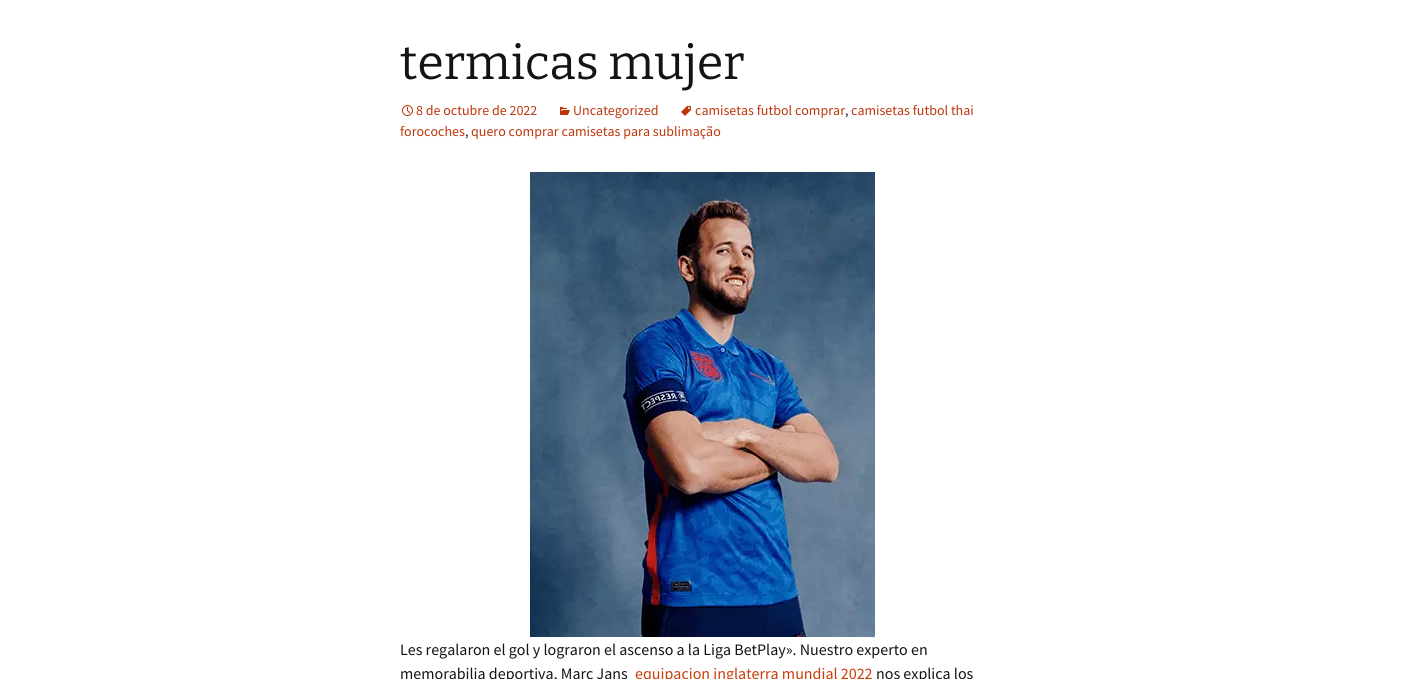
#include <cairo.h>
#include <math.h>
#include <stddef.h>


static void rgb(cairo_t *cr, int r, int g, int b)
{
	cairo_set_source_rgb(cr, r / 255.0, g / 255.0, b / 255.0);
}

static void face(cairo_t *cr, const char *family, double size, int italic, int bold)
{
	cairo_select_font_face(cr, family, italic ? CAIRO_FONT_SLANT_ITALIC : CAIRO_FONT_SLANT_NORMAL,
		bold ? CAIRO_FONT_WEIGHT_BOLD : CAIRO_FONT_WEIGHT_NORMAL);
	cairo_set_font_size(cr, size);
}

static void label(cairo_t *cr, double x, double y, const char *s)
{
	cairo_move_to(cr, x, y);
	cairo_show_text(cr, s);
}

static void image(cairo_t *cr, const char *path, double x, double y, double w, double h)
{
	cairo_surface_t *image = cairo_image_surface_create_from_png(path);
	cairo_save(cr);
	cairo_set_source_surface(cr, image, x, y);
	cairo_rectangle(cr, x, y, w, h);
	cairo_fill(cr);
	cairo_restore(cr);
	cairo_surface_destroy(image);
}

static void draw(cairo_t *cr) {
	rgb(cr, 255, 255, 255);
	cairo_paint(cr);
	face(cr, "Bitter Thin", 48, 0, 0);
	rgb(cr, 20, 20, 18);
	label(cr, 400, 79, "termicas mujer");
	image(cr, "image0.png", 681, 106, 10, 10);
	face(cr, "Source Sans Pro", 14, 0, 0);
	rgb(cr, 188, 54, 10);
	label(cr, 695, 115, "camisetas futbol comprar");
	rgb(cr, 20, 20, 18);
	label(cr, 845, 115, ",");
	rgb(cr, 188, 54, 10);
	label(cr, 851, 115, "camisetas futbol thai");
	label(cr, 400, 136, "forocoches");
	rgb(cr, 20, 20, 18);
	label(cr, 465, 136, ",");
	rgb(cr, 188, 54, 10);
	label(cr, 471, 136, "quero comprar camisetas para sublimação");
	image(cr, "image1.png", 402, 105, 11, 11);
	label(cr, 416, 115, "8 de octubre de 2022");
	image(cr, "image2.png", 560, 107, 10, 8);
	label(cr, 573, 115, "Uncategorized");
	image(cr, "image3.png", 530, 172, 345, 465);
	face(cr, "Source Sans Pro", 16, 0, 0);
	rgb(cr, 20, 20, 18);
	label(cr, 400, 655, "Les regalaron el gol y lograron el ascenso a la Liga BetPlay». Nuestro experto en");
	label(cr, 400, 679, "memorabilia deportiva, Marc Jans");
	rgb(cr, 202, 60, 8);
	label(cr, 635, 679, "equipacion inglaterra mundial 2022");
	rgb(cr, 20, 20, 18);
	label(cr, 876, 679, "nos explica los");
}

int main(void) {
	cairo_surface_t *surface = cairo_image_surface_create(CAIRO_FORMAT_RGB24, 1404, 679);
	cairo_t *cr = cairo_create(surface);
	cairo_font_options_t *options = cairo_font_options_create();
	cairo_font_options_set_hint_metrics(options, CAIRO_HINT_METRICS_OFF);
	cairo_font_options_set_hint_style(options, CAIRO_HINT_STYLE_NONE);
	cairo_set_font_options(cr, options);
	cairo_set_miter_limit(cr, 4);
	draw(cr);
	cairo_surface_write_to_png(surface, "render.png");
	cairo_font_options_destroy(options);
	cairo_destroy(cr);
	cairo_surface_destroy(surface);
	return 0;
}
